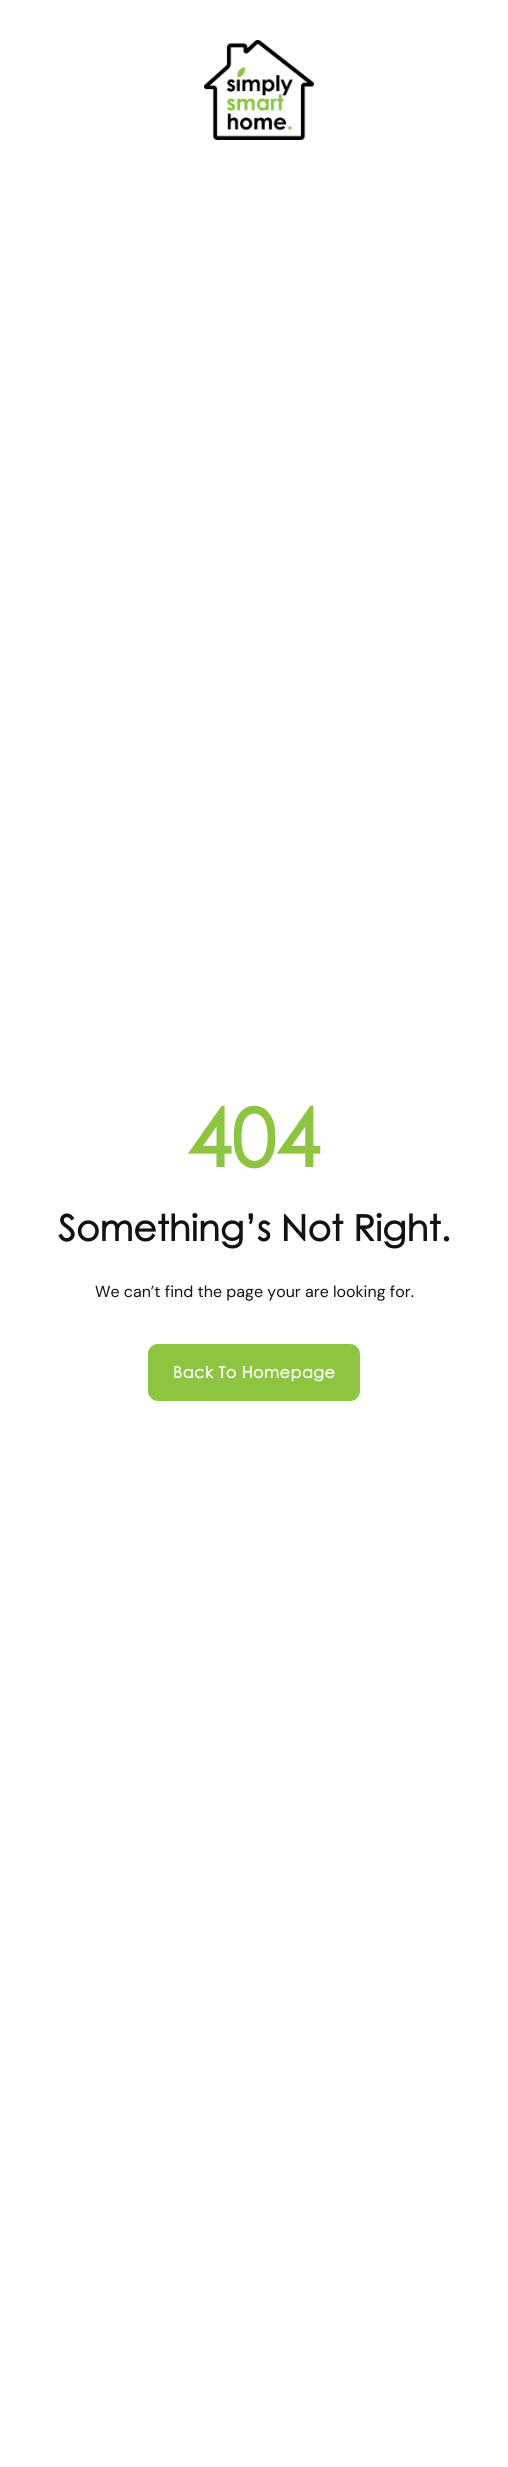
#include <cairo.h>
#include <math.h>
#include <stddef.h>


static void rgb(cairo_t *cr, int r, int g, int b)
{
	cairo_set_source_rgb(cr, r / 255.0, g / 255.0, b / 255.0);
}

static void face(cairo_t *cr, const char *family, double size, int italic, int bold)
{
	cairo_select_font_face(cr, family, italic ? CAIRO_FONT_SLANT_ITALIC : CAIRO_FONT_SLANT_NORMAL,
		bold ? CAIRO_FONT_WEIGHT_BOLD : CAIRO_FONT_WEIGHT_NORMAL);
	cairo_set_font_size(cr, size);
}

static void label(cairo_t *cr, double x, double y, const char *s)
{
	cairo_move_to(cr, x, y);
	cairo_show_text(cr, s);
}

static void tracked(cairo_t *cr, double x, double y, const char *s, double letter, double word)
{
	cairo_move_to(cr, x, y);
	while (*s) {
		char ch[5] = {0};
		int n = 0;
		do ch[n++] = *s++; while ((*s & 0xC0) == 0x80);
		cairo_show_text(cr, ch);
		cairo_rel_move_to(cr, letter + word * (*ch == ' '), 0);
	}
}

static void rrect(cairo_t *cr, double x, double y, double w, double h, double r)
{
	cairo_new_sub_path(cr);
	cairo_arc(cr, x + w - r, y + h - r, r, 0, M_PI / 2);
	cairo_arc(cr, x + r, y + h - r, r, M_PI / 2, M_PI);
	cairo_arc(cr, x + r, y + r, r, M_PI, 1.5 * M_PI);
	cairo_arc(cr, x + w - r, y + r, r, 1.5 * M_PI, 2 * M_PI);
	cairo_close_path(cr);
}

static void image(cairo_t *cr, const char *path, double x, double y, double w, double h)
{
	cairo_surface_t *image = cairo_image_surface_create_from_png(path);
	cairo_save(cr);
	cairo_set_source_surface(cr, image, x, y);
	cairo_rectangle(cr, x, y, w, h);
	cairo_fill(cr);
	cairo_restore(cr);
	cairo_surface_destroy(image);
}

static void draw(cairo_t *cr) {
	rgb(cr, 255, 255, 255);
	cairo_paint(cr);
	image(cr, "image0.png", 204, 40, 110, 100);
	face(cr, "Century Gothic", 80, 0, 1);
	rgb(cr, 141, 197, 64);
	label(cr, 187, 1167, "404");
	face(cr, "Century Gothic", 36, 0, 1);
	rgb(cr, 18, 18, 18);
	label(cr, 58, 1241, "Something’s Not Right.");
	face(cr, "DM Sans", 16, 0, 0);
	label(cr, 95, 1297, "We can’t find the page your are looking for.");
	rgb(cr, 141, 197, 64);
	rrect(cr, 148, 1344, 212, 57, 10);
	cairo_fill(cr);
	face(cr, "Century Gothic", 16, 0, 1);
	rgb(cr, 255, 255, 255);
	tracked(cr, 173, 1378, "Back To Homepage", 0.5, 0);
}

int main(void) {
	cairo_surface_t *surface = cairo_image_surface_create(CAIRO_FORMAT_RGB24, 508, 2467);
	cairo_t *cr = cairo_create(surface);
	cairo_font_options_t *options = cairo_font_options_create();
	cairo_font_options_set_hint_metrics(options, CAIRO_HINT_METRICS_OFF);
	cairo_font_options_set_hint_style(options, CAIRO_HINT_STYLE_NONE);
	cairo_set_font_options(cr, options);
	cairo_set_miter_limit(cr, 4);
	draw(cr);
	cairo_surface_write_to_png(surface, "render.png");
	cairo_font_options_destroy(options);
	cairo_destroy(cr);
	cairo_surface_destroy(surface);
	return 0;
}
